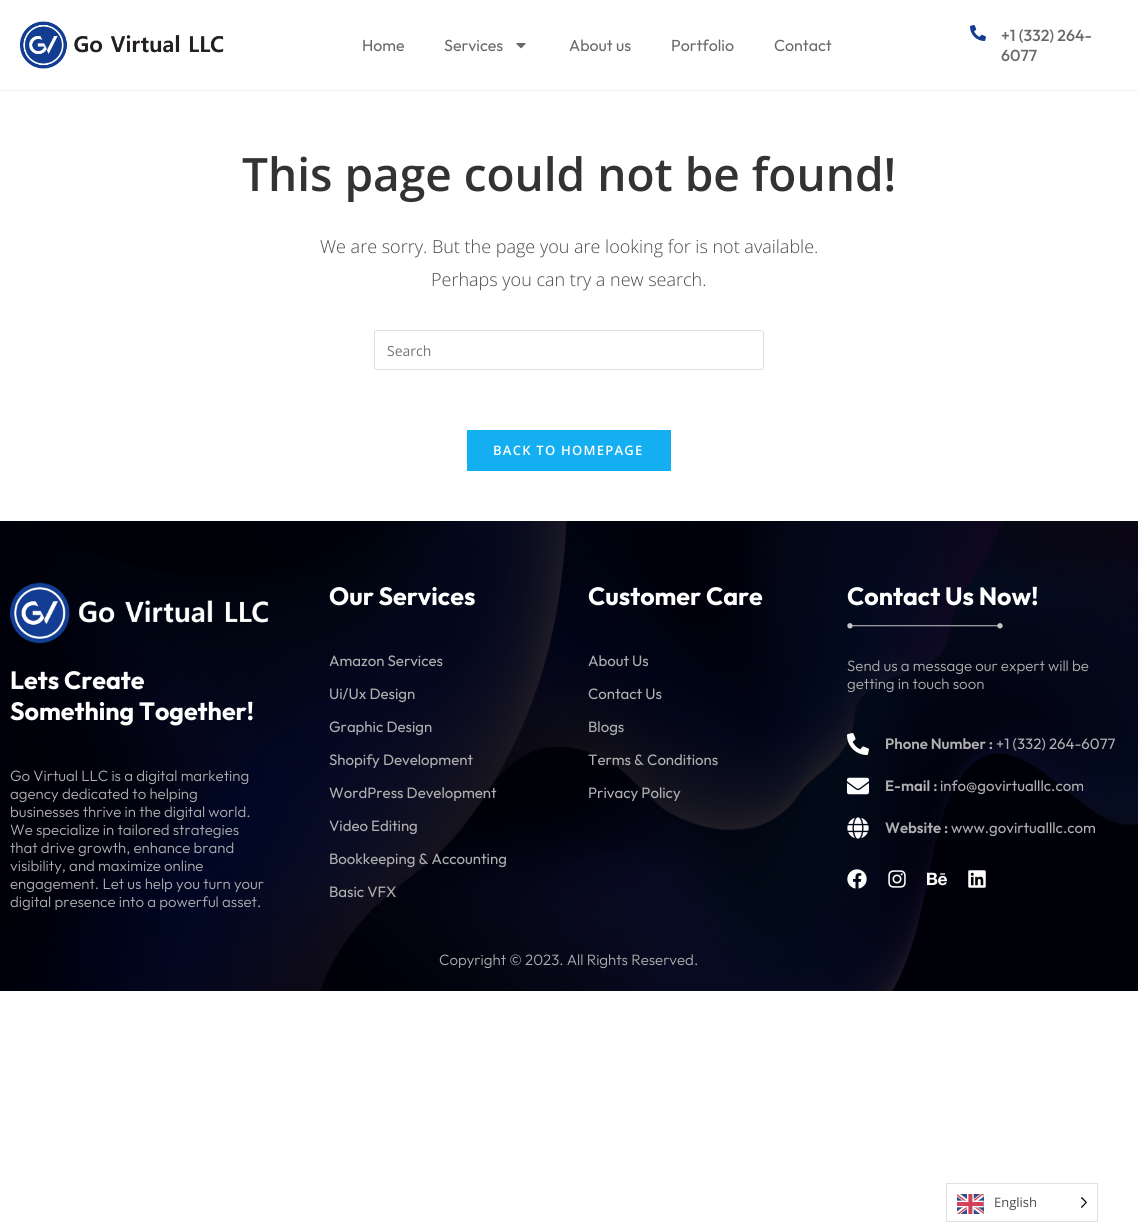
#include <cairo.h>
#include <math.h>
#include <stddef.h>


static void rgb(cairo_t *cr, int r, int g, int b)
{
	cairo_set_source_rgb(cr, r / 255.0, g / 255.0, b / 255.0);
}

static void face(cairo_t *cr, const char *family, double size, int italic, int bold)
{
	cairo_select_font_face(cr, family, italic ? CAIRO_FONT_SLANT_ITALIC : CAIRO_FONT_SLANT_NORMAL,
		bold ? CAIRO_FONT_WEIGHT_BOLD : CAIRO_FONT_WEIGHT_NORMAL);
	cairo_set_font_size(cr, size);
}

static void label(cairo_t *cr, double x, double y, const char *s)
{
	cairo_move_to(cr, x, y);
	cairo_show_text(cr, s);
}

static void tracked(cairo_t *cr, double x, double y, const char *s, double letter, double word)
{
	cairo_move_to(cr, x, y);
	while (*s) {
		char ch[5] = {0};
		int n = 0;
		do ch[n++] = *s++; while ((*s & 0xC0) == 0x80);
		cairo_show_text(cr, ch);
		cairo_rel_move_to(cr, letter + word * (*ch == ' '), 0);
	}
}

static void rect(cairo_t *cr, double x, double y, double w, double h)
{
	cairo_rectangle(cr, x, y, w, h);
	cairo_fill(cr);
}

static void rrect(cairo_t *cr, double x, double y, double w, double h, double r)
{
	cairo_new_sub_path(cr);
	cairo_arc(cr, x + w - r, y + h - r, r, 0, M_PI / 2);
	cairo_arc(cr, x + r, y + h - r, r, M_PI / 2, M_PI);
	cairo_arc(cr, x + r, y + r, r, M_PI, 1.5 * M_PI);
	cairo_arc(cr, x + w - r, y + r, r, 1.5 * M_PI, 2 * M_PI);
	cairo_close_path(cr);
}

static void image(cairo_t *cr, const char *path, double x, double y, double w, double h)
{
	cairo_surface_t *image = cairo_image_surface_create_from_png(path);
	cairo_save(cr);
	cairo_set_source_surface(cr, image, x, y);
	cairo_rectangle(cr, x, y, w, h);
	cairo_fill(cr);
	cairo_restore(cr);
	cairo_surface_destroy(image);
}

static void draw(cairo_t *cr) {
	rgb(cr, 255, 255, 255);
	cairo_paint(cr);
	rgb(cr, 241, 241, 241);
	rect(cr, 0, 90, 1138, 1);
	image(cr, "image0.png", 20, 21, 204, 48);
	face(cr, "Outfit", 16, 0, 0);
	rgb(cr, 105, 105, 105);
	label(cr, 362, 51, "Home");
	label(cr, 444, 51, "Services");
	image(cr, "image1.png", 516, 43, 10, 6);
	label(cr, 569, 51, "About us");
	label(cr, 671, 51, "Portfolio");
	label(cr, 774, 51, "Contact");
	image(cr, "image2.png", 970, 25, 16, 16);
	face(cr, "Outfit Medium", 16, 0, 0);
	label(cr, 1001, 41, "+1 (332) 264-");
	label(cr, 1001, 61, "6077");
	face(cr, "Open Sans SemiBold", 46, 0, 0);
	rgb(cr, 51, 51, 51);
	label(cr, 242, 191, "This page could not be found!");
	face(cr, "Open Sans Light", 18, 0, 0);
	rgb(cr, 74, 74, 74);
	label(cr, 320, 253, "We are sorry. But the page you are looking for is not available.");
	label(cr, 431, 286, "Perhaps you can try a new search.");
	rrect(cr, 374.5, 330.5, 389, 39, 2.5);
	rgb(cr, 221, 221, 221);
	cairo_set_line_width(cr, 1);
	cairo_stroke(cr);
	face(cr, "Open Sans", 14, 0, 0);
	rgb(cr, 117, 117, 117);
	label(cr, 387, 356, "Search");
	rgb(cr, 19, 175, 240);
	rect(cr, 467, 430, 204, 41);
	face(cr, "Open Sans SemiBold", 13, 0, 0);
	rgb(cr, 255, 255, 255);
	tracked(cr, 493, 455, "BACK TO HOMEPAGE", 1.25, 0);
	image(cr, "image3.png", 0, 521, 1138, 470);
	image(cr, "image4.png", 10, 582, 259, 62);
	face(cr, "Outfit", 25, 0, 1);
	label(cr, 10, 689, "Lets Create");
	label(cr, 10, 720, "Something Together!");
	face(cr, "Outfit Light", 15, 0, 0);
	rgb(cr, 176, 176, 176);
	label(cr, 10, 781, "Go Virtual LLC is a digital marketing");
	label(cr, 10, 799, "agency dedicated to helping");
	label(cr, 10, 817, "businesses thrive in the digital world.");
	label(cr, 10, 835, "We specialize in tailored strategies");
	label(cr, 10, 853, "that drive growth, enhance brand");
	label(cr, 10, 871, "visibility, and maximize online");
	label(cr, 10, 889, "engagement. Let us help you turn your");
	label(cr, 10, 907, "digital presence into a powerful asset.");
	face(cr, "Outfit", 25, 0, 1);
	rgb(cr, 255, 255, 255);
	label(cr, 329, 605, "Our Services");
	face(cr, "Outfit", 15, 0, 0);
	rgb(cr, 176, 176, 176);
	label(cr, 329, 666, "Amazon Services");
	label(cr, 329, 699, "Ui/Ux Design");
	label(cr, 329, 732, "Graphic Design");
	label(cr, 329, 765, "Shopify Development");
	label(cr, 329, 798, "WordPress Development");
	label(cr, 329, 831, "Video Editing");
	label(cr, 329, 864, "Bookkeeping & Accounting");
	label(cr, 329, 897, "Basic VFX");
	face(cr, "Outfit", 25, 0, 1);
	rgb(cr, 255, 255, 255);
	label(cr, 588, 605, "Customer Care");
	face(cr, "Outfit", 15, 0, 0);
	rgb(cr, 176, 176, 176);
	label(cr, 588, 666, "About Us");
	label(cr, 588, 699, "Contact Us");
	label(cr, 588, 732, "Blogs");
	label(cr, 588, 765, "Terms & Conditions");
	label(cr, 588, 798, "Privacy Policy");
	face(cr, "Outfit", 25, 0, 1);
	rgb(cr, 255, 255, 255);
	label(cr, 847, 605, "Contact Us Now!");
	image(cr, "image5.png", 847, 623, 156, 6);
	face(cr, "Outfit Light", 15, 0, 0);
	rgb(cr, 176, 176, 176);
	label(cr, 847, 671, "Send us a message our expert will be");
	label(cr, 847, 689, "getting in touch soon");
	image(cr, "image6.png", 847, 733, 22, 22);
	face(cr, "Outfit SemiBold", 15, 0, 0);
	label(cr, 885, 749, "Phone Number :");
	face(cr, "Outfit", 15, 0, 0);
	label(cr, 996, 749, "+1 (332) 264-6077");
	image(cr, "image7.png", 847, 777, 22, 18);
	face(cr, "Outfit SemiBold", 15, 0, 0);
	label(cr, 885, 791, "E-mail :");
	face(cr, "Outfit", 15, 0, 0);
	label(cr, 940, 791, "info@govirtualllc.com");
	image(cr, "image8.png", 847, 817, 22, 22);
	face(cr, "Outfit SemiBold", 15, 0, 0);
	label(cr, 885, 833, "Website :");
	face(cr, "Outfit", 15, 0, 0);
	label(cr, 951, 833, "www.govirtualllc.com");
	image(cr, "image9.png", 847, 869, 20, 20);
	image(cr, "image10.png", 888, 870, 18, 18);
	image(cr, "image11.png", 927, 872, 20, 14);
	image(cr, "image12.png", 968, 870, 18, 18);
	face(cr, "Outfit Light", 15, 0, 0);
	label(cr, 439, 965, "Copyright © 2023. All Rights Reserved.");
	cairo_rectangle(cr, 946.5, 1183.5, 151, 38);
	rgb(cr, 224, 224, 224);
	cairo_stroke(cr);
	image(cr, "image13.png", 957, 1194, 27, 20);
	face(cr, "Open Sans", 13, 0, 0);
	rgb(cr, 74, 74, 74);
	label(cr, 994, 1207, "English");
	image(cr, "image14.png", 1081, 1197, 6, 11);
}

int main(void) {
	cairo_surface_t *surface = cairo_image_surface_create(CAIRO_FORMAT_RGB24, 1138, 1222);
	cairo_t *cr = cairo_create(surface);
	cairo_font_options_t *options = cairo_font_options_create();
	cairo_font_options_set_hint_metrics(options, CAIRO_HINT_METRICS_OFF);
	cairo_font_options_set_hint_style(options, CAIRO_HINT_STYLE_NONE);
	cairo_set_font_options(cr, options);
	cairo_set_miter_limit(cr, 4);
	draw(cr);
	cairo_surface_write_to_png(surface, "render.png");
	cairo_font_options_destroy(options);
	cairo_destroy(cr);
	cairo_surface_destroy(surface);
	return 0;
}
